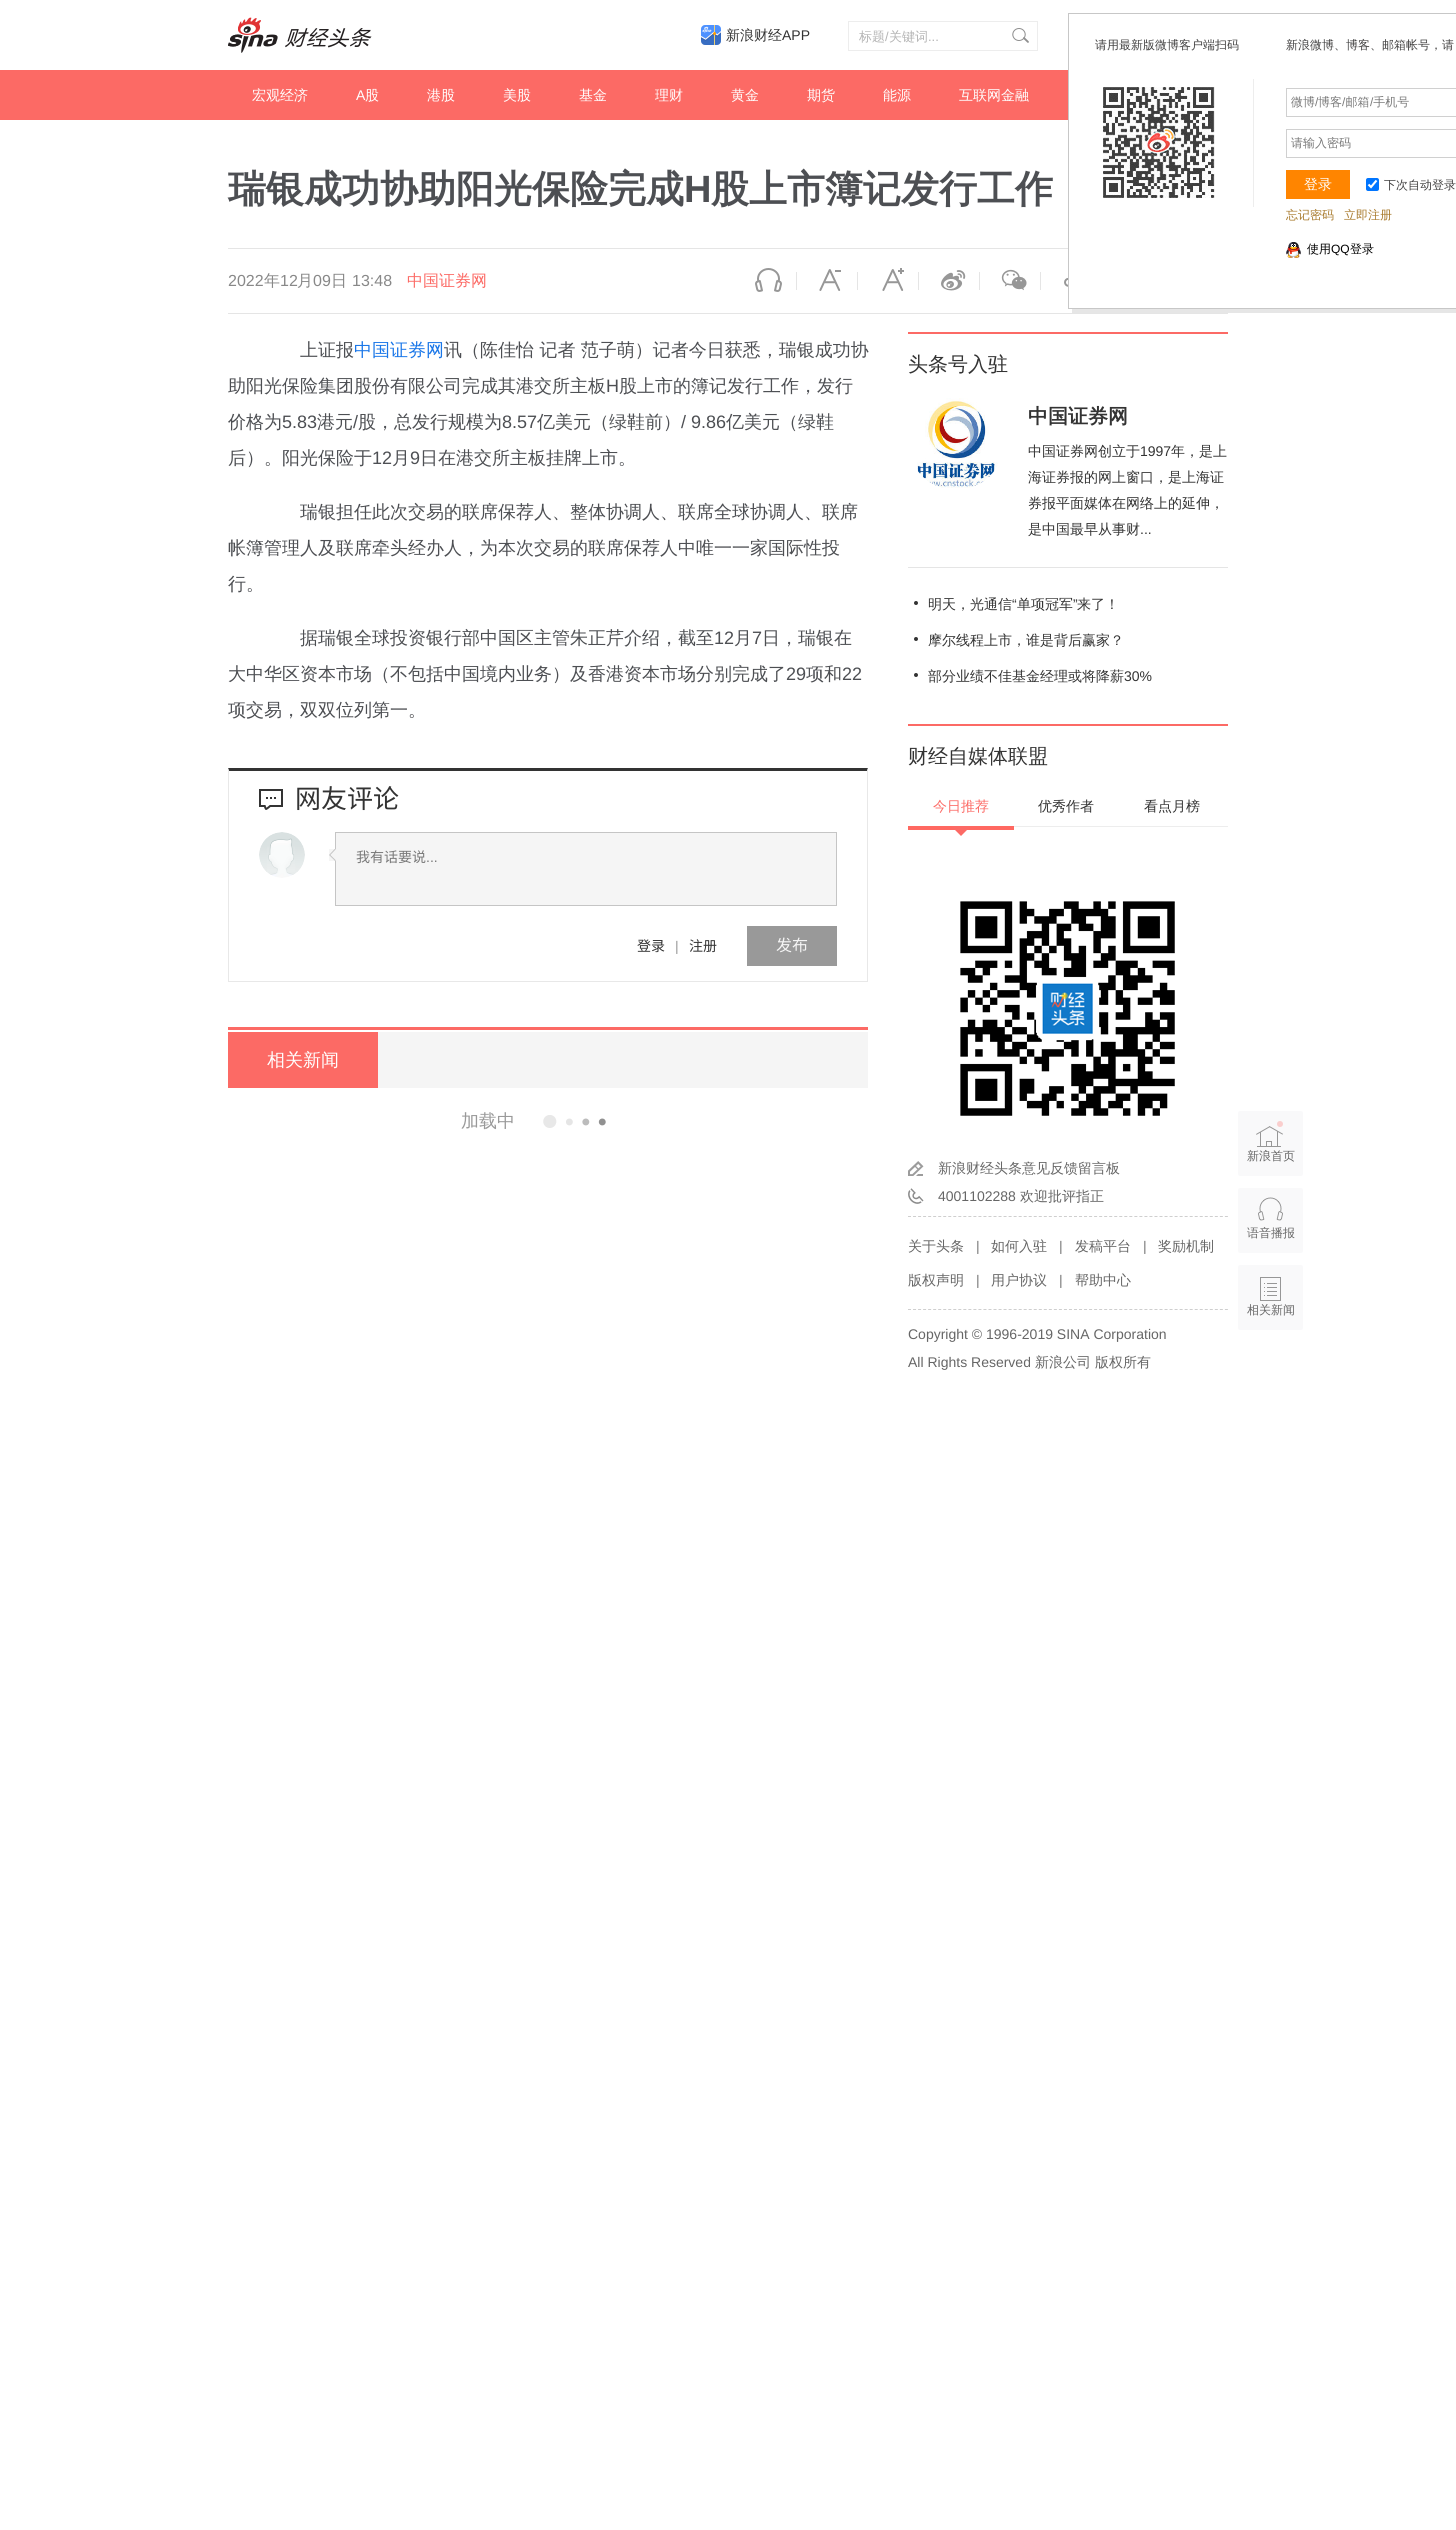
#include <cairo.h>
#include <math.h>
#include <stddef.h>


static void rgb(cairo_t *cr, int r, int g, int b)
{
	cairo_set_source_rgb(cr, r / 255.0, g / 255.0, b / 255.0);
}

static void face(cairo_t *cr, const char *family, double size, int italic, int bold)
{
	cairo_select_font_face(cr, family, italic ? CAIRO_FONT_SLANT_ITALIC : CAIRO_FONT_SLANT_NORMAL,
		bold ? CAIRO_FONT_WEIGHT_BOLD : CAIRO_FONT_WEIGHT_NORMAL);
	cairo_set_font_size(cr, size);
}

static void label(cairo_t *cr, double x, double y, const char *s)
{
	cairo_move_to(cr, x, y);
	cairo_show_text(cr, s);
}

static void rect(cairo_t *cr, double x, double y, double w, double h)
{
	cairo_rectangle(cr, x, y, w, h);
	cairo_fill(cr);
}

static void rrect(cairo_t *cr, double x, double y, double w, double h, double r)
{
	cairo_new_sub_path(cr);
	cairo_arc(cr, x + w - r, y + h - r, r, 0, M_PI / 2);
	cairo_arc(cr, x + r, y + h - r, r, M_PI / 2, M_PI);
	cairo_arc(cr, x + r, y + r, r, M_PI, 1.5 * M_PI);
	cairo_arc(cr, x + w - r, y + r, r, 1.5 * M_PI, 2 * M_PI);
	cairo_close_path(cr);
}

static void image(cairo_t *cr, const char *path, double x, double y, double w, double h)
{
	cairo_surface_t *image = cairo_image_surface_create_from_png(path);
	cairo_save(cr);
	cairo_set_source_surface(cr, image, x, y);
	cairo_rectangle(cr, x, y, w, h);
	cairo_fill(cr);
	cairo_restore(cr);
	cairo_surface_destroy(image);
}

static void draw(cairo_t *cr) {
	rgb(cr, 255, 255, 255);
	cairo_paint(cr);
	rgb(cr, 252, 106, 101);
	rect(cr, 0, 70, 1068, 50);
	face(cr, "WenQuanYi Zen Hei Medium", 14, 0, 0);
	rgb(cr, 255, 255, 255);
	label(cr, 252, 100, "宏观经济");
	face(cr, "Liberation Sans", 14, 0, 0);
	label(cr, 356, 100, "A");
	face(cr, "WenQuanYi Zen Hei Medium", 14, 0, 0);
	label(cr, 365, 100, "股");
	label(cr, 427, 100, "港股");
	label(cr, 503, 100, "美股");
	label(cr, 579, 100, "基金");
	label(cr, 655, 100, "理财");
	label(cr, 731, 100, "黄金");
	label(cr, 807, 100, "期货");
	label(cr, 883, 100, "能源");
	label(cr, 959, 100, "互联网金融");
	image(cr, "image0.png", 228, 17, 144, 36);
	image(cr, "image1.png", 701, 25, 20, 20);
	rgb(cr, 51, 51, 51);
	label(cr, 726, 40, "新浪财经");
	face(cr, "Liberation Sans", 14, 0, 0);
	label(cr, 782, 40, "APP");
	cairo_rectangle(cr, 848.5, 21.5, 189, 29);
	rgb(cr, 237, 237, 237);
	cairo_set_line_width(cr, 1);
	cairo_stroke(cr);
	face(cr, "WenQuanYi Zen Hei Medium", 13, 0, 0);
	rgb(cr, 180, 180, 180);
	label(cr, 859, 41, "标题 关键词");
	face(cr, "Liberation Sans", 13, 0, 0);
	label(cr, 885, 41, "/");
	label(cr, 928, 41, "...");
	image(cr, "image2.png", 1012, 28, 17, 15);
	rgb(cr, 230, 230, 230);
	cairo_new_path(cr);
	cairo_move_to(cr, 1072, 309);
	cairo_line_to(cr, 1072, 313);
	cairo_line_to(cr, 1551, 313);
	cairo_line_to(cr, 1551, 17);
	cairo_line_to(cr, 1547, 17);
	cairo_line_to(cr, 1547, 309);
	cairo_close_path(cr);
	cairo_fill(cr);
	cairo_rectangle(cr, 1068.5, 13.5, 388, 295);
	rgb(cr, 199, 199, 199);
	cairo_stroke(cr);
	face(cr, "WenQuanYi Zen Hei Medium", 12, 0, 0);
	rgb(cr, 67, 66, 66);
	label(cr, 1095, 49, "请用最新版微博客户端扫码");
	rgb(cr, 237, 237, 237);
	rect(cr, 1253, 79, 1, 128);
	image(cr, "image3.png", 1103, 87, 112, 111);
	rgb(cr, 67, 66, 66);
	label(cr, 1286, 49, "新浪微博、博客、邮箱帐号，请");
	cairo_rectangle(cr, 1286.5, 88.5, 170, 28);
	rgb(cr, 208, 208, 208);
	cairo_stroke(cr);
	rgb(cr, 121, 121, 121);
	label(cr, 1291, 106, "微博");
	face(cr, "Liberation Sans", 12, 0, 0);
	label(cr, 1315, 106, "/");
	face(cr, "WenQuanYi Zen Hei Medium", 12, 0, 0);
	label(cr, 1318, 106, "博客 邮箱 手机号");
	face(cr, "Liberation Sans", 12, 0, 0);
	label(cr, 1342, 106, "/");
	label(cr, 1370, 106, "/");
	cairo_rectangle(cr, 1286.5, 129.5, 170, 28);
	rgb(cr, 208, 208, 208);
	cairo_stroke(cr);
	face(cr, "WenQuanYi Zen Hei Medium", 12, 0, 0);
	rgb(cr, 121, 121, 121);
	label(cr, 1291, 147, "请输入密码");
	rgb(cr, 255, 133, 0);
	rect(cr, 1286, 170, 64, 29);
	face(cr, "WenQuanYi Zen Hei Medium", 14, 0, 0);
	rgb(cr, 255, 255, 255);
	label(cr, 1304, 189, "登录");
	rgb(cr, 0, 117, 255);
	rrect(cr, 1366, 178, 13, 13, 2);
	cairo_fill(cr);
	cairo_new_path(cr);
	cairo_move_to(cr, 1368.5, 184.5);
	cairo_line_to(cr, 1371, 187);
	cairo_line_to(cr, 1376.5, 180.5);
	rgb(cr, 255, 255, 255);
	cairo_set_line_width(cr, 2.1);
	cairo_stroke(cr);
	face(cr, "WenQuanYi Zen Hei Medium", 12, 0, 0);
	rgb(cr, 67, 66, 66);
	label(cr, 1384, 189, "下次自动登录");
	rgb(cr, 168, 122, 44);
	label(cr, 1286, 219, "忘记密码");
	label(cr, 1344, 219, "立即注册");
	image(cr, "image4.png", 1286, 242, 15, 16);
	rgb(cr, 0, 0, 0);
	label(cr, 1307, 253, "使用");
	face(cr, "Liberation Sans", 12, 0, 0);
	label(cr, 1331, 253, "QQ");
	face(cr, "WenQuanYi Zen Hei Medium", 12, 0, 0);
	label(cr, 1350, 253, "登录");
	face(cr, "WenQuanYi Zen Hei", 38, 0, 1);
	rgb(cr, 77, 79, 83);
	label(cr, 228, 202, "瑞银成功协助阳光保险完成");
	face(cr, "Liberation Sans", 38, 0, 1);
	label(cr, 684, 202, "H");
	face(cr, "WenQuanYi Zen Hei", 38, 0, 1);
	label(cr, 711, 202, "股上市簿记发行工作");
	rgb(cr, 229, 229, 229);
	rect(cr, 228, 248, 840, 1);
	rect(cr, 228, 313, 1000, 1);
	face(cr, "Liberation Sans", 16, 0, 0);
	rgb(cr, 136, 136, 136);
	label(cr, 228, 286, "2022");
	face(cr, "WenQuanYi Zen Hei Medium", 16, 0, 0);
	label(cr, 264, 286, "年");
	face(cr, "Liberation Sans", 16, 0, 0);
	label(cr, 280, 286, "12");
	face(cr, "WenQuanYi Zen Hei Medium", 16, 0, 0);
	label(cr, 297, 286, "月");
	face(cr, "Liberation Sans", 16, 0, 0);
	label(cr, 313, 286, "09");
	face(cr, "WenQuanYi Zen Hei Medium", 16, 0, 0);
	label(cr, 331, 286, "日");
	face(cr, "Liberation Sans", 16, 0, 0);
	label(cr, 352, 286, "13:48");
	face(cr, "WenQuanYi Zen Hei Medium", 16, 0, 0);
	rgb(cr, 252, 106, 101);
	label(cr, 407, 286, "中国证券网");
	image(cr, "image5.png", 755, 268, 27, 24);
	rgb(cr, 229, 229, 229);
	rect(cr, 796, 272, 1, 18);
	image(cr, "image6.png", 819, 269, 22, 22);
	rect(cr, 857, 272, 1, 18);
	image(cr, "image7.png", 882, 268, 22, 23);
	rect(cr, 918, 272, 1, 18);
	image(cr, "image8.png", 941, 270, 25, 21);
	rect(cr, 979, 272, 1, 18);
	image(cr, "image9.png", 1001, 269, 26, 22);
	rect(cr, 1040, 272, 1, 18);
	image(cr, "image10.png", 1064, 277, 4, 10);
	face(cr, "WenQuanYi Zen Hei Medium", 18, 0, 0);
	rgb(cr, 77, 79, 83);
	label(cr, 300, 356, "上证报");
	rgb(cr, 25, 118, 232);
	label(cr, 354, 356, "中国证券网");
	rgb(cr, 77, 79, 83);
	label(cr, 444, 356, "讯（陈佳怡 记者 范子萌）记者今日获悉，瑞银成功协");
	label(cr, 228, 392, "助阳光保险集团股份有限公司完成其港交所主板");
	face(cr, "Liberation Sans", 18, 0, 0);
	label(cr, 606, 392, "H");
	face(cr, "WenQuanYi Zen Hei Medium", 18, 0, 0);
	label(cr, 619, 392, "股上市的簿记发行工作，发行");
	label(cr, 228, 428, "价格为");
	face(cr, "Liberation Sans", 18, 0, 0);
	label(cr, 282, 428, "5.83");
	face(cr, "WenQuanYi Zen Hei Medium", 18, 0, 0);
	label(cr, 317, 428, "港元");
	face(cr, "Liberation Sans", 18, 0, 0);
	label(cr, 353, 428, "/");
	face(cr, "WenQuanYi Zen Hei Medium", 18, 0, 0);
	label(cr, 358, 428, "股，总发行规模为");
	face(cr, "Liberation Sans", 18, 0, 0);
	label(cr, 502, 428, "8.57");
	face(cr, "WenQuanYi Zen Hei Medium", 18, 0, 0);
	label(cr, 537, 428, "亿美元（绿鞋前）");
	face(cr, "Liberation Sans", 18, 0, 0);
	label(cr, 681, 428, "/ 9.86");
	face(cr, "WenQuanYi Zen Hei Medium", 18, 0, 0);
	label(cr, 726, 428, "亿美元（绿鞋");
	label(cr, 228, 464, "后）。阳光保险于");
	face(cr, "Liberation Sans", 18, 0, 0);
	label(cr, 372, 464, "12");
	face(cr, "WenQuanYi Zen Hei Medium", 18, 0, 0);
	label(cr, 392, 464, "月");
	face(cr, "Liberation Sans", 18, 0, 0);
	label(cr, 410, 464, "9");
	face(cr, "WenQuanYi Zen Hei Medium", 18, 0, 0);
	label(cr, 420, 464, "日在港交所主板挂牌上市。");
	label(cr, 300, 518, "瑞银担任此次交易的联席保荐人、整体协调人、联席全球协调人、联席");
	label(cr, 228, 554, "帐簿管理人及联席牵头经办人，为本次交易的联席保荐人中唯一一家国际性投");
	label(cr, 228, 590, "行。");
	label(cr, 300, 644, "据瑞银全球投资银行部中国区主管朱正芹介绍，截至");
	face(cr, "Liberation Sans", 18, 0, 0);
	label(cr, 714, 644, "12");
	face(cr, "WenQuanYi Zen Hei Medium", 18, 0, 0);
	label(cr, 734, 644, "月");
	face(cr, "Liberation Sans", 18, 0, 0);
	label(cr, 752, 644, "7");
	face(cr, "WenQuanYi Zen Hei Medium", 18, 0, 0);
	label(cr, 762, 644, "日，瑞银在");
	label(cr, 228, 680, "大中华区资本市场（不包括中国境内业务）及香港资本市场分别完成了");
	face(cr, "Liberation Sans", 18, 0, 0);
	label(cr, 786, 680, "29");
	face(cr, "WenQuanYi Zen Hei Medium", 18, 0, 0);
	label(cr, 806, 680, "项和");
	face(cr, "Liberation Sans", 18, 0, 0);
	label(cr, 842, 680, "22");
	face(cr, "WenQuanYi Zen Hei Medium", 18, 0, 0);
	label(cr, 228, 716, "项交易，双双位列第一。");
	rgb(cr, 51, 51, 51);
	cairo_new_path(cr);
	cairo_move_to(cr, 228, 768);
	cairo_line_to(cr, 868, 768);
	cairo_line_to(cr, 867, 771);
	cairo_line_to(cr, 229, 771);
	cairo_close_path(cr);
	cairo_fill(cr);
	rgb(cr, 232, 232, 232);
	cairo_new_path(cr);
	cairo_move_to(cr, 868, 768);
	cairo_line_to(cr, 868, 982);
	cairo_line_to(cr, 867, 981);
	cairo_line_to(cr, 867, 771);
	cairo_close_path(cr);
	cairo_fill(cr);
	rect(cr, 228, 981, 640, 1);
	cairo_new_path(cr);
	cairo_move_to(cr, 228, 982);
	cairo_line_to(cr, 228, 768);
	cairo_line_to(cr, 229, 771);
	cairo_line_to(cr, 229, 981);
	cairo_close_path(cr);
	cairo_fill(cr);
	image(cr, "image11.png", 259, 789, 24, 21);
	face(cr, "Noto Sans CJK SC", 26, 0, 0);
	rgb(cr, 51, 51, 51);
	label(cr, 295, 808, "网友评论");
	image(cr, "image12.png", 259, 832, 46, 46);
	rgb(cr, 245, 245, 245);
	cairo_rectangle(cr, 335.5, 832.5, 501, 73);
	cairo_fill_preserve(cr);
	rgb(cr, 197, 197, 197);
	cairo_set_line_width(cr, 1);
	cairo_stroke(cr);
	rgb(cr, 245, 245, 245);
	rect(cr, 329, 849, 7, 12);
	image(cr, "image13.png", 329, 849, 7, 12);
	face(cr, "Noto Sans CJK SC", 14, 0, 0);
	rgb(cr, 121, 121, 121);
	label(cr, 356, 862, "我有话要说");
	face(cr, "Liberation Sans", 14, 0, 0);
	label(cr, 426, 862, "...");
	face(cr, "Noto Sans CJK SC", 14, 0, 0);
	rgb(cr, 51, 51, 51);
	label(cr, 637, 951, "登录");
	face(cr, "Liberation Sans", 14, 0, 0);
	rgb(cr, 153, 153, 153);
	label(cr, 675, 951, "|");
	face(cr, "Noto Sans CJK SC", 14, 0, 0);
	rgb(cr, 51, 51, 51);
	label(cr, 689, 951, "注册");
	rgb(cr, 153, 153, 153);
	rect(cr, 747, 926, 90, 40);
	face(cr, "Noto Sans CJK SC", 16, 0, 0);
	rgb(cr, 245, 245, 245);
	label(cr, 776, 951, "发布");
	rgb(cr, 252, 106, 101);
	rect(cr, 228, 1027, 640, 3);
	rgb(cr, 245, 245, 245);
	rect(cr, 378, 1032, 490, 56);
	rgb(cr, 252, 106, 101);
	rect(cr, 228, 1032, 150, 56);
	face(cr, "WenQuanYi Zen Hei Medium", 18, 0, 0);
	rgb(cr, 255, 255, 255);
	label(cr, 267, 1066, "相关新闻");
	rgb(cr, 153, 153, 153);
	label(cr, 461, 1127, "加载中");
	image(cr, "image14.png", 543, 1115, 63, 13);
	rgb(cr, 252, 106, 101);
	rect(cr, 908, 332, 320, 2);
	face(cr, "WenQuanYi Zen Hei Medium", 20, 0, 0);
	rgb(cr, 51, 51, 51);
	label(cr, 908, 371, "头条号入驻");
	image(cr, "image15.png", 917, 398, 81, 90);
	face(cr, "WenQuanYi Zen Hei", 20, 0, 1);
	label(cr, 1028, 423, "中国证券网");
	face(cr, "WenQuanYi Zen Hei Medium", 14, 0, 0);
	label(cr, 1028, 456, "中国证券网创立于");
	face(cr, "Liberation Sans", 14, 0, 0);
	label(cr, 1140, 456, "1997");
	face(cr, "WenQuanYi Zen Hei Medium", 14, 0, 0);
	label(cr, 1171, 456, "年，是上");
	label(cr, 1028, 482, "海证券报的网上窗口，是上海证");
	label(cr, 1028, 508, "券报平面媒体在网络上的延伸，");
	label(cr, 1028, 534, "是中国最早从事财");
	face(cr, "Liberation Sans", 14, 0, 0);
	label(cr, 1140, 534, "...");
	rgb(cr, 229, 229, 229);
	rect(cr, 908, 567, 320, 1);
	rgb(cr, 51, 51, 51);
	cairo_new_path(cr);
	cairo_arc(cr, 916, 603, 2, 0, 2 * M_PI);
	cairo_fill(cr);
	face(cr, "WenQuanYi Zen Hei Medium", 14, 0, 0);
	label(cr, 928, 609, "明天，光通信");
	face(cr, "Liberation Sans", 14, 0, 0);
	label(cr, 1012, 609, "“");
	face(cr, "WenQuanYi Zen Hei Medium", 14, 0, 0);
	label(cr, 1017, 609, "单项冠军");
	face(cr, "Liberation Sans", 14, 0, 0);
	label(cr, 1073, 609, "”");
	face(cr, "WenQuanYi Zen Hei Medium", 14, 0, 0);
	label(cr, 1077, 609, "来了！");
	cairo_new_path(cr);
	cairo_arc(cr, 916, 639, 2, 0, 2 * M_PI);
	cairo_fill(cr);
	label(cr, 928, 645, "摩尔线程上市，谁是背后赢家？");
	cairo_new_path(cr);
	cairo_arc(cr, 916, 675, 2, 0, 2 * M_PI);
	cairo_fill(cr);
	label(cr, 928, 681, "部分业绩不佳基金经理或将降薪");
	face(cr, "Liberation Sans", 14, 0, 0);
	label(cr, 1124, 681, "30%");
	rgb(cr, 252, 106, 101);
	rect(cr, 908, 724, 320, 2);
	face(cr, "WenQuanYi Zen Hei Medium", 20, 0, 0);
	rgb(cr, 51, 51, 51);
	label(cr, 908, 763, "财经自媒体联盟");
	rgb(cr, 237, 237, 237);
	rect(cr, 1014, 826, 214, 1);
	rgb(cr, 255, 104, 97);
	rect(cr, 908, 826, 106, 4);
	face(cr, "WenQuanYi Zen Hei Medium", 14, 0, 0);
	rgb(cr, 252, 106, 101);
	label(cr, 933, 811, "今日推荐");
	cairo_new_path(cr);
	cairo_move_to(cr, 951, 826);
	cairo_line_to(cr, 971, 826);
	cairo_line_to(cr, 961, 836);
	cairo_close_path(cr);
	cairo_fill(cr);
	rgb(cr, 51, 51, 51);
	label(cr, 1038, 811, "优秀作者");
	label(cr, 1144, 811, "看点月榜");
	image(cr, "image16.png", 960, 901, 215, 215);
	image(cr, "image17.png", 908, 1161, 16, 15);
	rgb(cr, 102, 102, 102);
	label(cr, 938, 1173, "新浪财经头条意见反馈留言板");
	image(cr, "image18.png", 908, 1188, 16, 16);
	face(cr, "Liberation Sans", 14, 0, 0);
	label(cr, 938, 1201, "4001102288");
	face(cr, "WenQuanYi Zen Hei Medium", 14, 0, 0);
	label(cr, 1020, 1201, "欢迎批评指正");
	cairo_new_path(cr);
	cairo_move_to(cr, 908, 1216.5);
	cairo_line_to(cr, 1228, 1216.5);
	rgb(cr, 207, 207, 207);
	cairo_set_dash(cr, (double[]){3, 2.03}, 2, 0);
	cairo_stroke(cr);
	cairo_new_path(cr);
	cairo_move_to(cr, 908, 1309.5);
	cairo_line_to(cr, 1228, 1309.5);
	cairo_stroke(cr);
	rgb(cr, 102, 102, 102);
	label(cr, 908, 1251, "关于头条");
	face(cr, "Liberation Sans", 14, 0, 0);
	rgb(cr, 121, 121, 121);
	label(cr, 976, 1251, "|");
	face(cr, "WenQuanYi Zen Hei Medium", 14, 0, 0);
	rgb(cr, 102, 102, 102);
	label(cr, 991, 1251, "如何入驻");
	face(cr, "Liberation Sans", 14, 0, 0);
	rgb(cr, 121, 121, 121);
	label(cr, 1059, 1251, "|");
	face(cr, "WenQuanYi Zen Hei Medium", 14, 0, 0);
	rgb(cr, 102, 102, 102);
	label(cr, 1075, 1251, "发稿平台");
	face(cr, "Liberation Sans", 14, 0, 0);
	rgb(cr, 121, 121, 121);
	label(cr, 1143, 1251, "|");
	face(cr, "WenQuanYi Zen Hei Medium", 14, 0, 0);
	rgb(cr, 102, 102, 102);
	label(cr, 1158, 1251, "奖励机制");
	label(cr, 908, 1285, "版权声明");
	face(cr, "Liberation Sans", 14, 0, 0);
	rgb(cr, 121, 121, 121);
	label(cr, 976, 1285, "|");
	face(cr, "WenQuanYi Zen Hei Medium", 14, 0, 0);
	rgb(cr, 102, 102, 102);
	label(cr, 991, 1285, "用户协议");
	face(cr, "Liberation Sans", 14, 0, 0);
	rgb(cr, 121, 121, 121);
	label(cr, 1059, 1285, "|");
	face(cr, "WenQuanYi Zen Hei Medium", 14, 0, 0);
	rgb(cr, 102, 102, 102);
	label(cr, 1075, 1285, "帮助中心");
	face(cr, "Liberation Sans", 14, 0, 0);
	label(cr, 908, 1339, "Copyright © 1996-2019 SINA Corporation");
	label(cr, 908, 1367, "All Rights Reserved");
	face(cr, "WenQuanYi Zen Hei Medium", 14, 0, 0);
	label(cr, 1035, 1367, "新浪公司");
	label(cr, 1095, 1367, "版权所有");
	rgb(cr, 249, 249, 250);
	rrect(cr, 1238, 1111, 65, 65, 2);
	cairo_fill(cr);
	image(cr, "image19.png", 1256, 1126, 27, 21);
	rgb(cr, 250, 206, 205);
	cairo_arc(cr, 1280, 1124, 3, 0, 2 * M_PI);
	cairo_fill(cr);
	face(cr, "WenQuanYi Zen Hei Medium", 12, 0, 0);
	rgb(cr, 102, 102, 102);
	label(cr, 1247, 1160, "新浪首页");
	rgb(cr, 249, 249, 250);
	rrect(cr, 1238, 1188, 65, 65, 2);
	cairo_fill(cr);
	image(cr, "image20.png", 1258, 1197, 25, 24);
	rgb(cr, 102, 102, 102);
	label(cr, 1247, 1237, "语音播报");
	rgb(cr, 249, 249, 250);
	rrect(cr, 1238, 1265, 65, 65, 2);
	cairo_fill(cr);
	image(cr, "image21.png", 1260, 1277, 21, 24);
	rgb(cr, 102, 102, 102);
	label(cr, 1247, 1314, "相关新闻");
}

int main(void) {
	cairo_surface_t *surface = cairo_image_surface_create(CAIRO_FORMAT_RGB24, 1456, 2530);
	cairo_t *cr = cairo_create(surface);
	cairo_font_options_t *options = cairo_font_options_create();
	cairo_font_options_set_hint_metrics(options, CAIRO_HINT_METRICS_OFF);
	cairo_font_options_set_hint_style(options, CAIRO_HINT_STYLE_NONE);
	cairo_set_font_options(cr, options);
	cairo_set_miter_limit(cr, 4);
	draw(cr);
	cairo_surface_write_to_png(surface, "render.png");
	cairo_font_options_destroy(options);
	cairo_destroy(cr);
	cairo_surface_destroy(surface);
	return 0;
}
